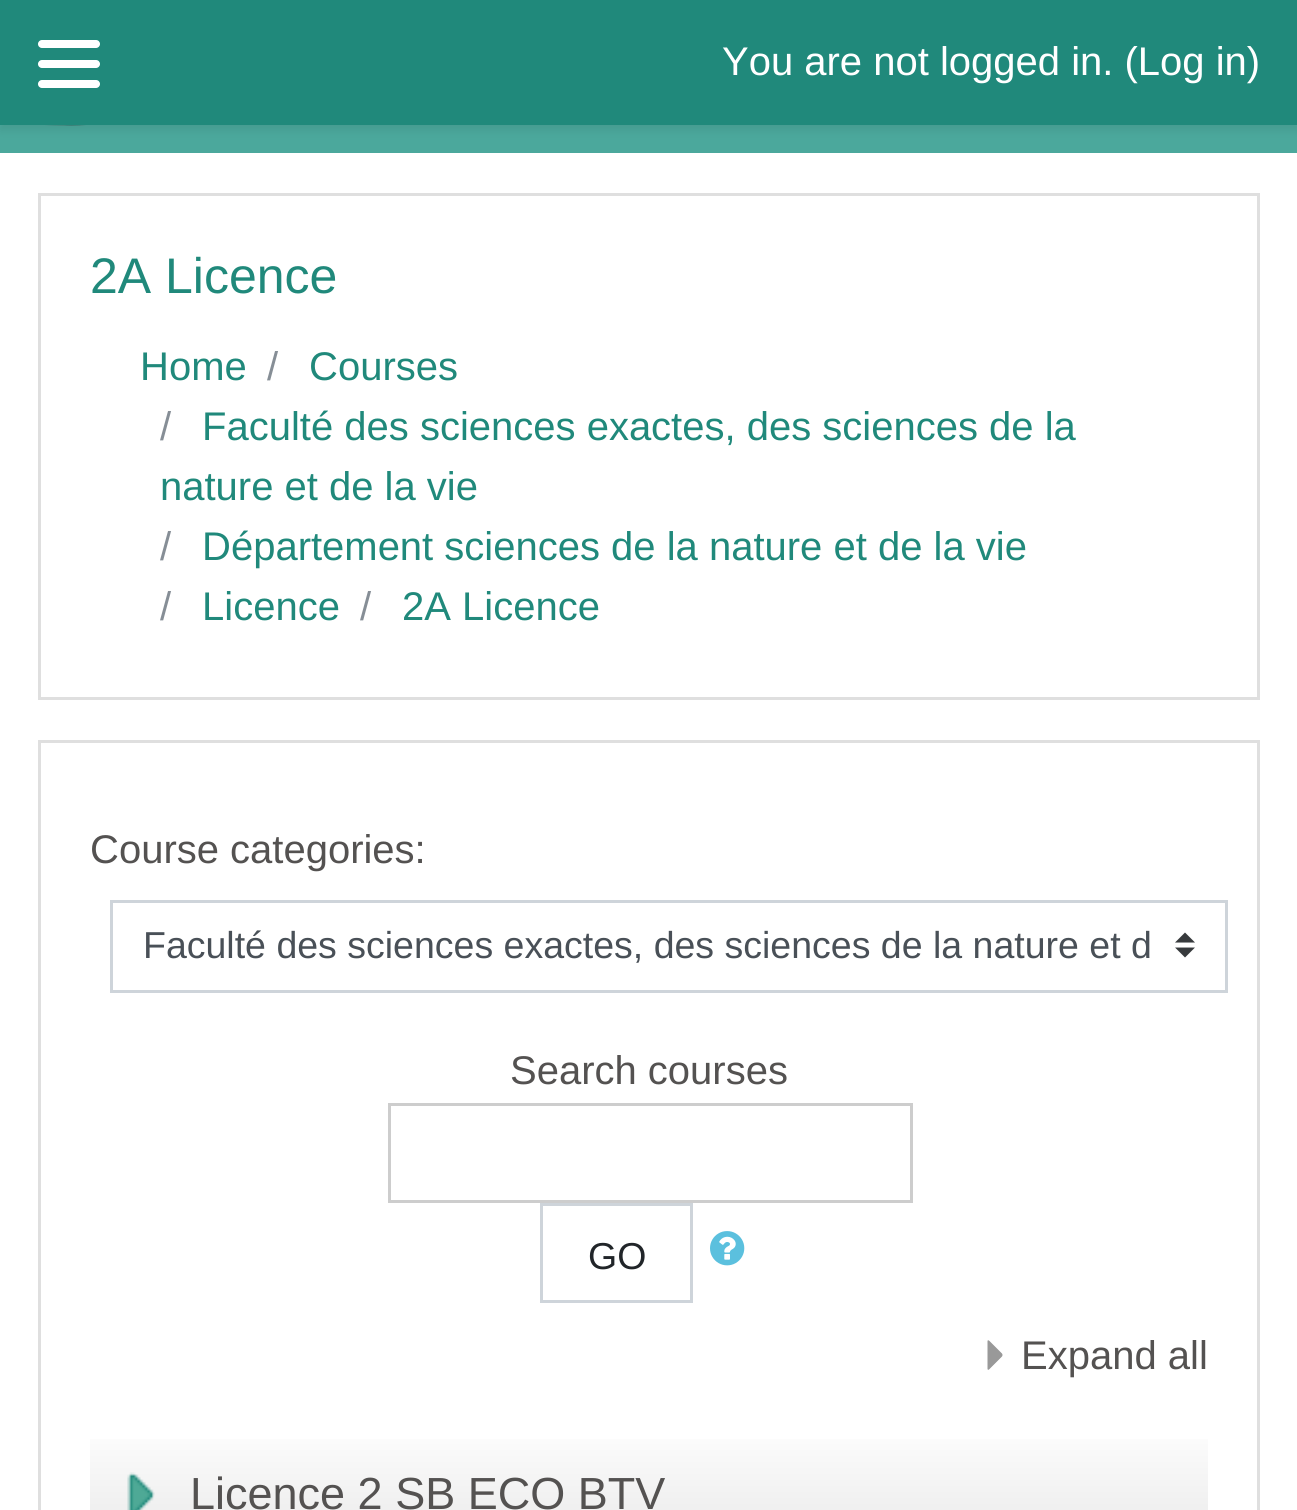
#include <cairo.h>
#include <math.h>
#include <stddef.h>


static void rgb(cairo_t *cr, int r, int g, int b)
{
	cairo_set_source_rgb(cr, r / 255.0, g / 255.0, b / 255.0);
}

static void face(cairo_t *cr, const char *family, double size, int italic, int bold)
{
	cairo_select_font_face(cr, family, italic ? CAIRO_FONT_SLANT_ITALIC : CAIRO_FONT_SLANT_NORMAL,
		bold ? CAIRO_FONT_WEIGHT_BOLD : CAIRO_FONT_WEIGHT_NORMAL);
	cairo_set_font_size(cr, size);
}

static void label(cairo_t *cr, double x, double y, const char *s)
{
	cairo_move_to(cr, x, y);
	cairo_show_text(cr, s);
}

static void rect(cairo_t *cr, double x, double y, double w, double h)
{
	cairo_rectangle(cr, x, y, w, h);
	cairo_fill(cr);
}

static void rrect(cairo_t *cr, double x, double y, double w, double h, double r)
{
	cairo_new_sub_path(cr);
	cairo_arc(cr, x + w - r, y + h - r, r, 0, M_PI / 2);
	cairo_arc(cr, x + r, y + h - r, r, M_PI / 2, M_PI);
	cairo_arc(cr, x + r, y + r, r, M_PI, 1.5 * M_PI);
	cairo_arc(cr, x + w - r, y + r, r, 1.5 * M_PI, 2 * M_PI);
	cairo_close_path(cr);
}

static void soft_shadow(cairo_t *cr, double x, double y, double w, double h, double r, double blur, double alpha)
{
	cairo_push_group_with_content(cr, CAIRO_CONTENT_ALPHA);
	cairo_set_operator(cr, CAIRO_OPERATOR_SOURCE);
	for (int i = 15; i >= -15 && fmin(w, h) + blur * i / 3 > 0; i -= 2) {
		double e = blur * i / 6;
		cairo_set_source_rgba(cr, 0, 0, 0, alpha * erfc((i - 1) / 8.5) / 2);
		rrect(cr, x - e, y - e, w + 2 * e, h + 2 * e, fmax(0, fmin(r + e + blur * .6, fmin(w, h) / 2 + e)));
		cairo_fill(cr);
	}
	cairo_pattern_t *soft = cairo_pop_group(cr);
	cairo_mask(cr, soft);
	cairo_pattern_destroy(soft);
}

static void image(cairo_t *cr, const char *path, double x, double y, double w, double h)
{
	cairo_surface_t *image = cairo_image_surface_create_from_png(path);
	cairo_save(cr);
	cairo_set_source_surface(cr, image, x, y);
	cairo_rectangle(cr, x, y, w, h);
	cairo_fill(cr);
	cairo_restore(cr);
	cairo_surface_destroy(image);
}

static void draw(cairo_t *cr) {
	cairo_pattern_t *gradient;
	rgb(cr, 255, 255, 255);
	cairo_paint(cr);
	rgb(cr, 75, 168, 156);
	rect(cr, 0, 125, 1297, 28);
	image(cr, "image0.png", 45, 125, 41, 1);
	rgb(cr, 0, 0, 0);
	soft_shadow(cr, 0, 5, 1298, 125, 0, 5, 0.08);
	rgb(cr, 32, 137, 123);
	rect(cr, 0, 0, 1297, 125);
	rgb(cr, 255, 255, 255);
	rrect(cr, 38, 40, 62, 8, 4);
	cairo_fill(cr);
	rrect(cr, 38, 60, 62, 8, 4);
	cairo_fill(cr);
	rrect(cr, 38, 80, 62, 8, 4);
	cairo_fill(cr);
	face(cr, "Liberation Sans", 40, 0, 0);
	label(cr, 722, 75, "You are not logged in. (Log in)");
	cairo_rectangle(cr, 39.5, 194.5, 1219, 504);
	rgb(cr, 223, 223, 223);
	cairo_set_line_width(cr, 3);
	cairo_stroke(cr);
	face(cr, "Liberation Sans", 50, 0, 0);
	rgb(cr, 32, 137, 123);
	label(cr, 90, 293, "2A Licence");
	face(cr, "Liberation Sans", 40, 0, 0);
	label(cr, 140, 380, "Home");
	rgb(cr, 134, 142, 150);
	label(cr, 267, 380, "/");
	rgb(cr, 32, 137, 123);
	label(cr, 309, 380, "Courses");
	rgb(cr, 134, 142, 150);
	label(cr, 160, 440, "/");
	rgb(cr, 32, 137, 123);
	label(cr, 202, 440, "Faculté des sciences exactes, des sciences de la");
	label(cr, 160, 500, "nature et de la vie");
	rgb(cr, 134, 142, 150);
	label(cr, 160, 560, "/");
	rgb(cr, 32, 137, 123);
	label(cr, 202, 560, "Département sciences de la nature et de la vie");
	rgb(cr, 134, 142, 150);
	label(cr, 160, 620, "/");
	rgb(cr, 32, 137, 123);
	label(cr, 202, 620, "Licence");
	rgb(cr, 134, 142, 150);
	label(cr, 360, 620, "/");
	rgb(cr, 32, 137, 123);
	label(cr, 402, 620, "2A Licence");
	cairo_rectangle(cr, 39.5, 741.5, 1219, 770);
	rgb(cr, 223, 223, 223);
	cairo_stroke(cr);
	rgb(cr, 84, 82, 81);
	label(cr, 90, 863, "Course categories:");
	rgb(cr, 55, 58, 60);
	cairo_new_path(cr);
	cairo_move_to(cr, 1185, 932.5);
	cairo_line_to(cr, 1175, 942.5);
	cairo_line_to(cr, 1195, 942.5);
	cairo_close_path(cr);
	cairo_move_to(cr, 1185, 957.5);
	cairo_line_to(cr, 1175, 947.5);
	cairo_line_to(cr, 1195, 947.5);
	cairo_close_path(cr);
	cairo_fill(cr);
	cairo_rectangle(cr, 111.5, 901.5, 1115, 90);
	rgb(cr, 206, 212, 218);
	cairo_stroke(cr);
	face(cr, "Liberation Sans", 37.5, 0, 0);
	rgb(cr, 73, 80, 87);
	label(cr, 143, 958, "Faculté des sciences exactes, des sciences de la nature et d");
	face(cr, "Liberation Sans", 40, 0, 0);
	rgb(cr, 84, 82, 81);
	label(cr, 510, 1084, "Search courses");
	cairo_rectangle(cr, 389.5, 1104.5, 522, 97);
	rgb(cr, 205, 205, 205);
	cairo_stroke(cr);
	cairo_rectangle(cr, 541.5, 1204.5, 150, 97);
	rgb(cr, 206, 212, 218);
	cairo_stroke(cr);
	face(cr, "Liberation Sans", 37.5, 0, 0);
	rgb(cr, 33, 37, 41);
	label(cr, 588, 1269, "GO");
	image(cr, "image1.png", 710, 1231, 35, 35);
	image(cr, "image2.png", 987, 1340, 16, 30);
	face(cr, "Liberation Sans", 40, 0, 0);
	rgb(cr, 84, 82, 81);
	label(cr, 1021, 1369, "Expand all");
	gradient = cairo_pattern_create_linear(649, 1435, 649, 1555);
	cairo_pattern_add_color_stop_rgba(gradient, 0, 1, 1, 1, 1);
	cairo_pattern_add_color_stop_rgba(gradient, 0.05, 0.984, 0.984, 0.984, 1);
	cairo_pattern_add_color_stop_rgba(gradient, 1, 0.91, 0.91, 0.91, 1);
	cairo_set_source(cr, gradient);
	cairo_pattern_destroy(gradient);
	rect(cr, 90, 1439, 1118, 71);
	image(cr, "image3.png", 127, 1472, 28, 38);
	face(cr, "Liberation Sans", 45, 0, 0);
	rgb(cr, 84, 82, 81);
	label(cr, 190, 1509, "Licence 2 SB ECO BTV");
}

int main(void) {
	cairo_surface_t *surface = cairo_image_surface_create(CAIRO_FORMAT_RGB24, 1297, 1510);
	cairo_t *cr = cairo_create(surface);
	cairo_font_options_t *options = cairo_font_options_create();
	cairo_font_options_set_hint_metrics(options, CAIRO_HINT_METRICS_OFF);
	cairo_font_options_set_hint_style(options, CAIRO_HINT_STYLE_NONE);
	cairo_set_font_options(cr, options);
	cairo_set_miter_limit(cr, 4);
	draw(cr);
	cairo_surface_write_to_png(surface, "render.png");
	cairo_font_options_destroy(options);
	cairo_destroy(cr);
	cairo_surface_destroy(surface);
	return 0;
}
